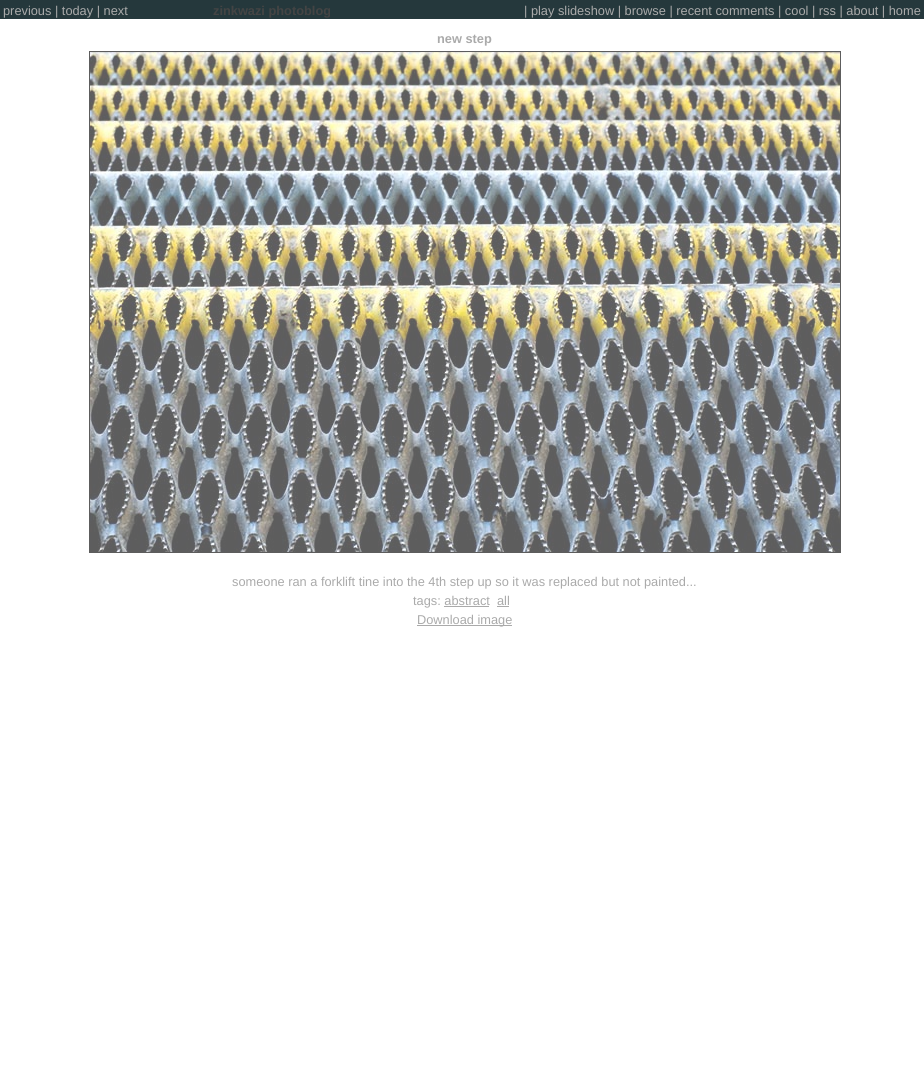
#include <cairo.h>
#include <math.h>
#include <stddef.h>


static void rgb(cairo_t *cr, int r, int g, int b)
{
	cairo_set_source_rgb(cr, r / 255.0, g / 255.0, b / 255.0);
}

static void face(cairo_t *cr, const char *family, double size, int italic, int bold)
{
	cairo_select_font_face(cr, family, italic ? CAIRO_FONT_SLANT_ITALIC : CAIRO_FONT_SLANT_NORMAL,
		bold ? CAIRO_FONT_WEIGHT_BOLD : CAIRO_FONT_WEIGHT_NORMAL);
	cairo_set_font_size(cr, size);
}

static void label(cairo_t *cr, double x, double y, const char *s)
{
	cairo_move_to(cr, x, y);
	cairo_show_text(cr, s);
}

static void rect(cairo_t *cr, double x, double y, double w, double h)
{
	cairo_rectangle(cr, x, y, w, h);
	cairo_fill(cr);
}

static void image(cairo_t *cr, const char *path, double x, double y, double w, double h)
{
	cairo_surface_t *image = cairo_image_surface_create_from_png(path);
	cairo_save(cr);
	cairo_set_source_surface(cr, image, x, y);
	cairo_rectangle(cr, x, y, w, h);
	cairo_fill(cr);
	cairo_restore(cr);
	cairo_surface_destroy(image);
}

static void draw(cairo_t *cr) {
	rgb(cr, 255, 255, 255);
	cairo_paint(cr);
	rgb(cr, 37, 56, 60);
	rect(cr, 0, 0, 924, 19);
	face(cr, "Liberation Sans", 12.8, 0, 0);
	rgb(cr, 170, 170, 170);
	label(cr, 3, 15, "previous | today | next");
	face(cr, "Liberation Sans", 12.8, 0, 1);
	rgb(cr, 68, 68, 68);
	label(cr, 213, 15, "zinkwazi photoblog");
	face(cr, "Liberation Sans", 12.8, 0, 0);
	rgb(cr, 170, 170, 170);
	label(cr, 524, 15, "| play slideshow | browse | recent comments | cool | rss | about | home");
	face(cr, "Liberation Sans", 12.8, 0, 1);
	label(cr, 437, 43, "new step");
	cairo_rectangle(cr, 89.5, 51.5, 751, 501);
	rgb(cr, 93, 93, 93);
	cairo_set_line_width(cr, 1);
	cairo_stroke(cr);
	image(cr, "image0.png", 90, 52, 750, 500);
	face(cr, "Liberation Sans", 12.8, 0, 0);
	rgb(cr, 170, 170, 170);
	label(cr, 232, 586, "someone ran a forklift tine into the 4th step up so it was replaced but not painted...");
	label(cr, 413, 605, "tags: abstract");
	label(cr, 497, 605, "all");
	rect(cr, 497, 606, 12, 1);
	rect(cr, 444, 606, 45, 1);
	rect(cr, 417, 625, 95, 1);
	label(cr, 417, 624, "Download image");
}

int main(void) {
	cairo_surface_t *surface = cairo_image_surface_create(CAIRO_FORMAT_RGB24, 924, 1076);
	cairo_t *cr = cairo_create(surface);
	cairo_font_options_t *options = cairo_font_options_create();
	cairo_font_options_set_hint_metrics(options, CAIRO_HINT_METRICS_OFF);
	cairo_font_options_set_hint_style(options, CAIRO_HINT_STYLE_NONE);
	cairo_set_font_options(cr, options);
	cairo_set_miter_limit(cr, 4);
	draw(cr);
	cairo_surface_write_to_png(surface, "render.png");
	cairo_font_options_destroy(options);
	cairo_destroy(cr);
	cairo_surface_destroy(surface);
	return 0;
}
